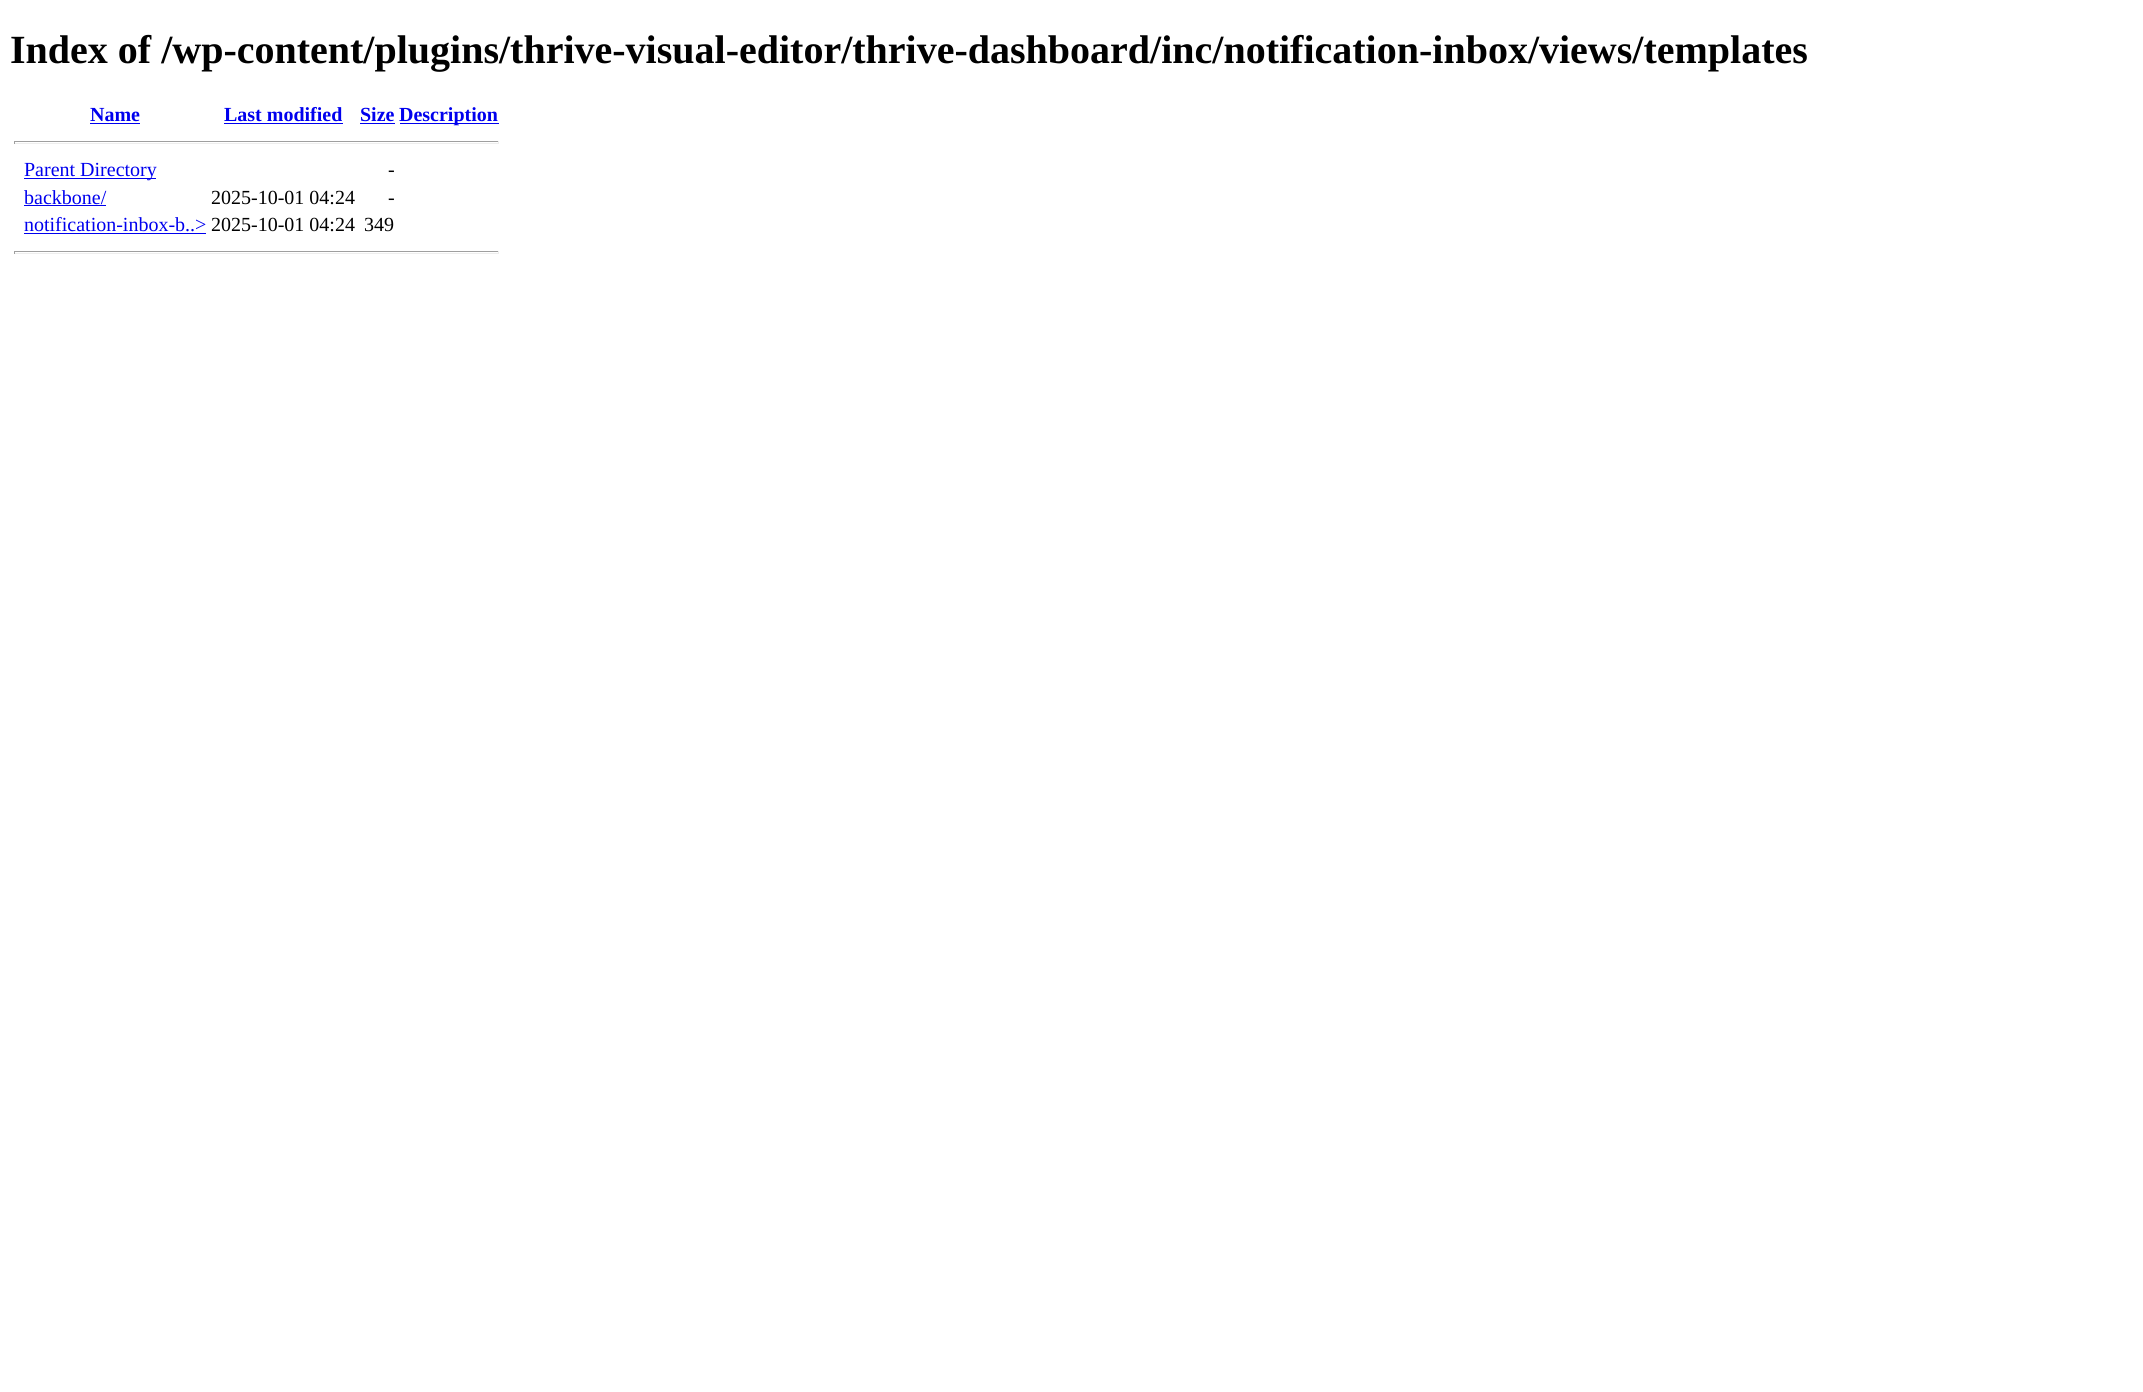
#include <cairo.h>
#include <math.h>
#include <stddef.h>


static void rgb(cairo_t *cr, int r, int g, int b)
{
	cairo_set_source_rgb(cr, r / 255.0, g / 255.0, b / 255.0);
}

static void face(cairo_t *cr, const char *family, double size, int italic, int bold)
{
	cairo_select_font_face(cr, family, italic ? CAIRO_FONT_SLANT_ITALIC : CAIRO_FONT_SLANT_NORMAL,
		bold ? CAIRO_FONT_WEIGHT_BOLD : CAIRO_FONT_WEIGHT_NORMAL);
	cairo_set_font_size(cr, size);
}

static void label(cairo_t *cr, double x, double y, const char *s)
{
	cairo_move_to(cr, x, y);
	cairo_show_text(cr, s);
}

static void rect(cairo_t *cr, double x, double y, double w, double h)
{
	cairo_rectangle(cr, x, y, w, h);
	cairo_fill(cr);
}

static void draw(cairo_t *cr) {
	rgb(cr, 255, 255, 255);
	cairo_paint(cr);
	face(cr, "Liberation Serif", 40, 0, 1);
	rgb(cr, 0, 0, 0);
	label(cr, 10, 63, "Index of /wp-content/plugins/thrive-visual-editor/thrive-dashboard/inc/notification-inbox/views/templates");
	face(cr, "Liberation Serif", 20, 0, 1);
	rgb(cr, 0, 0, 238);
	label(cr, 90, 121, "Name");
	rect(cr, 90, 123, 50, 1);
	label(cr, 224, 121, "Last modified");
	rect(cr, 224, 123, 119, 1);
	label(cr, 360, 121, "Size");
	rect(cr, 360, 123, 35, 1);
	rect(cr, 400, 123, 99, 1);
	label(cr, 399, 121, "Description");
	rgb(cr, 159, 159, 159);
	rect(cr, 14, 141, 485, 1);
	rgb(cr, 238, 238, 238);
	rect(cr, 498, 141, 1, 3);
	rect(cr, 14, 143, 485, 1);
	rgb(cr, 159, 159, 159);
	rect(cr, 14, 141, 1, 3);
	rgb(cr, 0, 0, 238);
	rect(cr, 24, 178, 132, 1);
	face(cr, "Liberation Serif", 20, 0, 0);
	label(cr, 24, 176, "Parent Directory");
	rgb(cr, 0, 0, 0);
	label(cr, 388, 176, "-");
	rgb(cr, 0, 0, 238);
	label(cr, 24, 204, "backbone/");
	rect(cr, 24, 205, 82, 1);
	rgb(cr, 0, 0, 0);
	label(cr, 211, 204, "2025-10-01 04:24");
	label(cr, 388, 204, "-");
	rgb(cr, 0, 0, 238);
	label(cr, 24, 231, "notification-inbox-b..>");
	rect(cr, 24, 233, 182, 1);
	rgb(cr, 0, 0, 0);
	label(cr, 211, 231, "2025-10-01 04:24");
	label(cr, 364, 231, "349");
	rgb(cr, 159, 159, 159);
	rect(cr, 14, 251, 485, 1);
	rgb(cr, 238, 238, 238);
	rect(cr, 498, 251, 1, 3);
	rect(cr, 14, 253, 485, 1);
	rgb(cr, 159, 159, 159);
	rect(cr, 14, 251, 1, 3);
}

int main(void) {
	cairo_surface_t *surface = cairo_image_surface_create(CAIRO_FORMAT_RGB24, 2143, 1392);
	cairo_t *cr = cairo_create(surface);
	cairo_font_options_t *options = cairo_font_options_create();
	cairo_font_options_set_hint_metrics(options, CAIRO_HINT_METRICS_OFF);
	cairo_font_options_set_hint_style(options, CAIRO_HINT_STYLE_NONE);
	cairo_set_font_options(cr, options);
	cairo_set_miter_limit(cr, 4);
	draw(cr);
	cairo_surface_write_to_png(surface, "render.png");
	cairo_font_options_destroy(options);
	cairo_destroy(cr);
	cairo_surface_destroy(surface);
	return 0;
}
